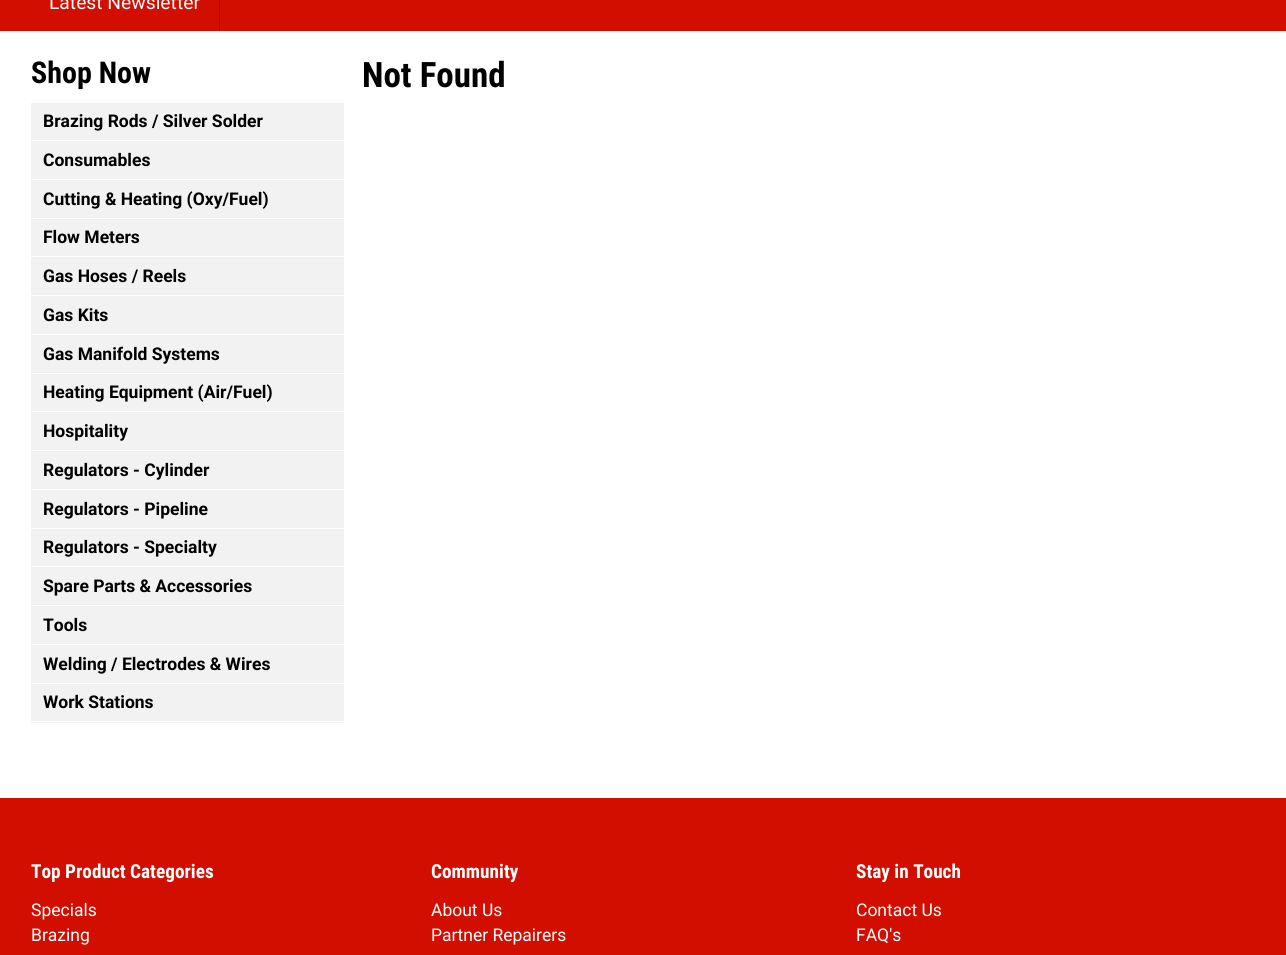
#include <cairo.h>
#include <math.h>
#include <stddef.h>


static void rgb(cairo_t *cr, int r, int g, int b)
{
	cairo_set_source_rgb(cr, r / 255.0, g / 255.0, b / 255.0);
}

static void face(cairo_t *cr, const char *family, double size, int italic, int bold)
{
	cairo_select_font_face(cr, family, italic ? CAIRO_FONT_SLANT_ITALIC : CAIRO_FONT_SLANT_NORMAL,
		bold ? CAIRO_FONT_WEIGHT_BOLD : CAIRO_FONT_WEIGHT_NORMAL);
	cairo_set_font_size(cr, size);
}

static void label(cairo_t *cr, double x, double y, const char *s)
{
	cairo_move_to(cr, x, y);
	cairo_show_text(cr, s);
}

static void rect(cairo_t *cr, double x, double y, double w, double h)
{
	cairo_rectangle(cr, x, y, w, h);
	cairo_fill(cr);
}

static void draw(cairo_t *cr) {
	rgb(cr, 255, 255, 255);
	cairo_paint(cr);
	rgb(cr, 209, 14, 0);
	rect(cr, 0, 0, 1286, 31);
	rgb(cr, 178, 12, 0);
	rect(cr, 219, 0, 1, 31);
	face(cr, "Roboto", 19.25, 0, 0);
	rgb(cr, 255, 255, 255);
	label(cr, 49, 9, "Latest Newsletter");
	face(cr, "Roboto Condensed", 30, 0, 1);
	rgb(cr, 0, 0, 0);
	label(cr, 31, 83, "Shop Now");
	rgb(cr, 243, 242, 242);
	rect(cr, 31, 103, 313, 620);
	rgb(cr, 255, 255, 255);
	rect(cr, 31, 140, 313, 1);
	face(cr, "Roboto", 17.5, 0, 1);
	rgb(cr, 0, 0, 0);
	label(cr, 43, 127, "Brazing Rods / Silver Solder");
	rgb(cr, 255, 255, 255);
	rect(cr, 31, 179, 313, 1);
	rgb(cr, 0, 0, 0);
	label(cr, 43, 166, "Consumables");
	rgb(cr, 255, 255, 255);
	rect(cr, 31, 218, 313, 1);
	rgb(cr, 0, 0, 0);
	label(cr, 43, 205, "Cutting & Heating (Oxy/Fuel)");
	rgb(cr, 255, 255, 255);
	rect(cr, 31, 256, 313, 1);
	rgb(cr, 0, 0, 0);
	label(cr, 43, 243, "Flow Meters");
	rgb(cr, 255, 255, 255);
	rect(cr, 31, 295, 313, 1);
	rgb(cr, 0, 0, 0);
	label(cr, 43, 282, "Gas Hoses / Reels");
	rgb(cr, 255, 255, 255);
	rect(cr, 31, 334, 313, 1);
	rgb(cr, 0, 0, 0);
	label(cr, 43, 321, "Gas Kits");
	rgb(cr, 255, 255, 255);
	rect(cr, 31, 373, 313, 1);
	rgb(cr, 0, 0, 0);
	label(cr, 43, 360, "Gas Manifold Systems");
	rgb(cr, 255, 255, 255);
	rect(cr, 31, 411, 313, 1);
	rgb(cr, 0, 0, 0);
	label(cr, 43, 398, "Heating Equipment (Air/Fuel)");
	rgb(cr, 255, 255, 255);
	rect(cr, 31, 450, 313, 1);
	rgb(cr, 0, 0, 0);
	label(cr, 43, 437, "Hospitality");
	rgb(cr, 255, 255, 255);
	rect(cr, 31, 489, 313, 1);
	rgb(cr, 0, 0, 0);
	label(cr, 43, 476, "Regulators - Cylinder");
	rgb(cr, 255, 255, 255);
	rect(cr, 31, 528, 313, 1);
	rgb(cr, 0, 0, 0);
	label(cr, 43, 515, "Regulators - Pipeline");
	rgb(cr, 255, 255, 255);
	rect(cr, 31, 566, 313, 1);
	rgb(cr, 0, 0, 0);
	label(cr, 43, 553, "Regulators - Specialty");
	rgb(cr, 255, 255, 255);
	rect(cr, 31, 605, 313, 1);
	rgb(cr, 0, 0, 0);
	label(cr, 43, 592, "Spare Parts & Accessories");
	rgb(cr, 255, 255, 255);
	rect(cr, 31, 644, 313, 1);
	rgb(cr, 0, 0, 0);
	label(cr, 43, 631, "Tools");
	rgb(cr, 255, 255, 255);
	rect(cr, 31, 683, 313, 1);
	rgb(cr, 0, 0, 0);
	label(cr, 43, 670, "Welding / Electrodes & Wires");
	rgb(cr, 255, 255, 255);
	rect(cr, 31, 721, 313, 1);
	rgb(cr, 0, 0, 0);
	label(cr, 43, 708, "Work Stations");
	face(cr, "Roboto Condensed", 35, 0, 1);
	label(cr, 362, 87, "Not Found");
	rgb(cr, 209, 14, 0);
	rect(cr, 0, 798, 1286, 157);
	face(cr, "Roboto Condensed", 19.25, 0, 1);
	rgb(cr, 255, 255, 255);
	label(cr, 31, 878, "Top Product Categories");
	face(cr, "Roboto", 17.5, 0, 0);
	label(cr, 31, 916, "Specials");
	label(cr, 31, 941, "Brazing");
	face(cr, "Roboto Condensed", 19.25, 0, 1);
	label(cr, 431, 878, "Community");
	face(cr, "Roboto", 17.5, 0, 0);
	label(cr, 431, 916, "About Us");
	label(cr, 431, 941, "Partner Repairers");
	face(cr, "Roboto Condensed", 19.25, 0, 1);
	label(cr, 856, 878, "Stay in Touch");
	face(cr, "Roboto", 17.5, 0, 0);
	label(cr, 856, 916, "Contact Us");
	label(cr, 856, 941, "FAQ's");
}

int main(void) {
	cairo_surface_t *surface = cairo_image_surface_create(CAIRO_FORMAT_RGB24, 1286, 955);
	cairo_t *cr = cairo_create(surface);
	cairo_font_options_t *options = cairo_font_options_create();
	cairo_font_options_set_hint_metrics(options, CAIRO_HINT_METRICS_OFF);
	cairo_font_options_set_hint_style(options, CAIRO_HINT_STYLE_NONE);
	cairo_set_font_options(cr, options);
	cairo_set_miter_limit(cr, 4);
	draw(cr);
	cairo_surface_write_to_png(surface, "render.png");
	cairo_font_options_destroy(options);
	cairo_destroy(cr);
	cairo_surface_destroy(surface);
	return 0;
}
